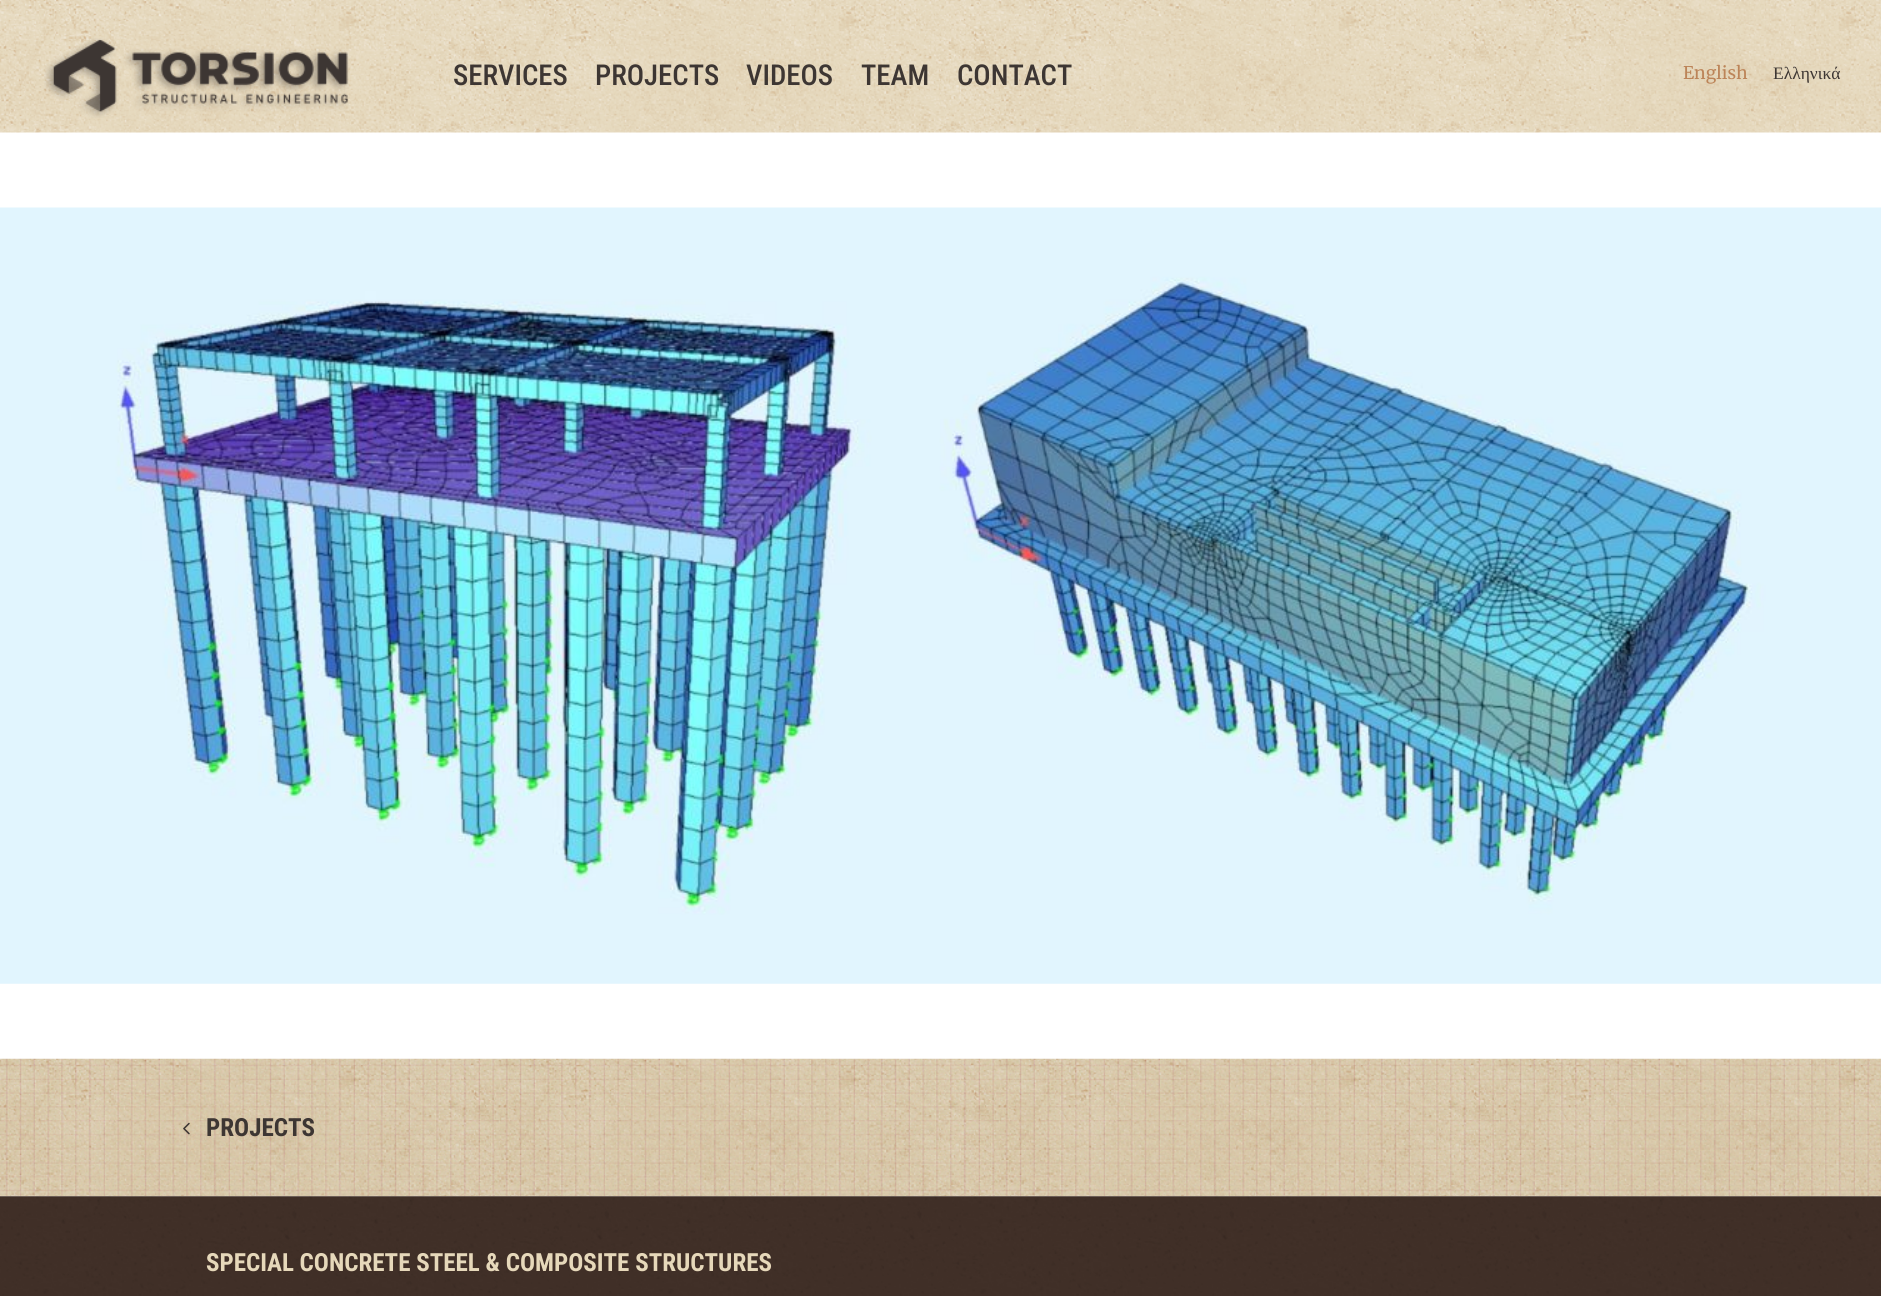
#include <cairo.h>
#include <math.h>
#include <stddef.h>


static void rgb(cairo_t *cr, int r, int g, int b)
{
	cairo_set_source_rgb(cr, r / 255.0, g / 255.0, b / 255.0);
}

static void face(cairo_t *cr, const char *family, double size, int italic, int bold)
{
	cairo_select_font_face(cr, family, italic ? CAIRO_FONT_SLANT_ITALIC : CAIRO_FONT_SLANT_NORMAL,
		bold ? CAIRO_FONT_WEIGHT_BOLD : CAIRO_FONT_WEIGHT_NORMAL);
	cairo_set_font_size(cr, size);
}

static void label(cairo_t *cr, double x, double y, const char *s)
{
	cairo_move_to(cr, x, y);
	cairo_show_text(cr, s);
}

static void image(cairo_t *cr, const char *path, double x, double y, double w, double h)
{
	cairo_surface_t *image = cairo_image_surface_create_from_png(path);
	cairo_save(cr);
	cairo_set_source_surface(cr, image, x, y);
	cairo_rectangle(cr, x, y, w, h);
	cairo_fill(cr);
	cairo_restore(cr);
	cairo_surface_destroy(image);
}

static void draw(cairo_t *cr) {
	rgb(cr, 255, 255, 255);
	cairo_paint(cr);
	image(cr, "image0.png", 0, 0, 1881, 133);
	image(cr, "image1.png", 44, 38, 305, 80);
	face(cr, "Roboto Condensed Medium", 28.75, 0, 0);
	rgb(cr, 61, 54, 51);
	label(cr, 453, 85, "SERVICES");
	label(cr, 595, 85, "PROJECTS");
	label(cr, 746, 85, "VIDEOS");
	label(cr, 861, 85, "TEAM");
	label(cr, 957, 85, "CONTACT");
	face(cr, "Merriweather Light", 17.5, 0, 0);
	rgb(cr, 188, 132, 88);
	label(cr, 1683, 79, "English");
	face(cr, "Liberation Serif", 17.5, 0, 0);
	rgb(cr, 61, 54, 51);
	label(cr, 1773, 79, "Ελληνικά");
	image(cr, "image2.png", 0, 207, 1881, 777);
	image(cr, "image3.png", 0, 1058, 1881, 139);
	image(cr, "image4.png", 183, 1122, 7, 13);
	face(cr, "Roboto Condensed", 25, 0, 1);
	label(cr, 206, 1136, "PROJECTS");
	image(cr, "image5.png", 0, 1196, 1881, 100);
	rgb(cr, 230, 216, 186);
	label(cr, 206, 1271, "SPECIAL CONCRETE STEEL & COMPOSITE STRUCTURES");
}

int main(void) {
	cairo_surface_t *surface = cairo_image_surface_create(CAIRO_FORMAT_RGB24, 1881, 1296);
	cairo_t *cr = cairo_create(surface);
	cairo_font_options_t *options = cairo_font_options_create();
	cairo_font_options_set_hint_metrics(options, CAIRO_HINT_METRICS_OFF);
	cairo_font_options_set_hint_style(options, CAIRO_HINT_STYLE_NONE);
	cairo_set_font_options(cr, options);
	cairo_set_miter_limit(cr, 4);
	draw(cr);
	cairo_surface_write_to_png(surface, "render.png");
	cairo_font_options_destroy(options);
	cairo_destroy(cr);
	cairo_surface_destroy(surface);
	return 0;
}
